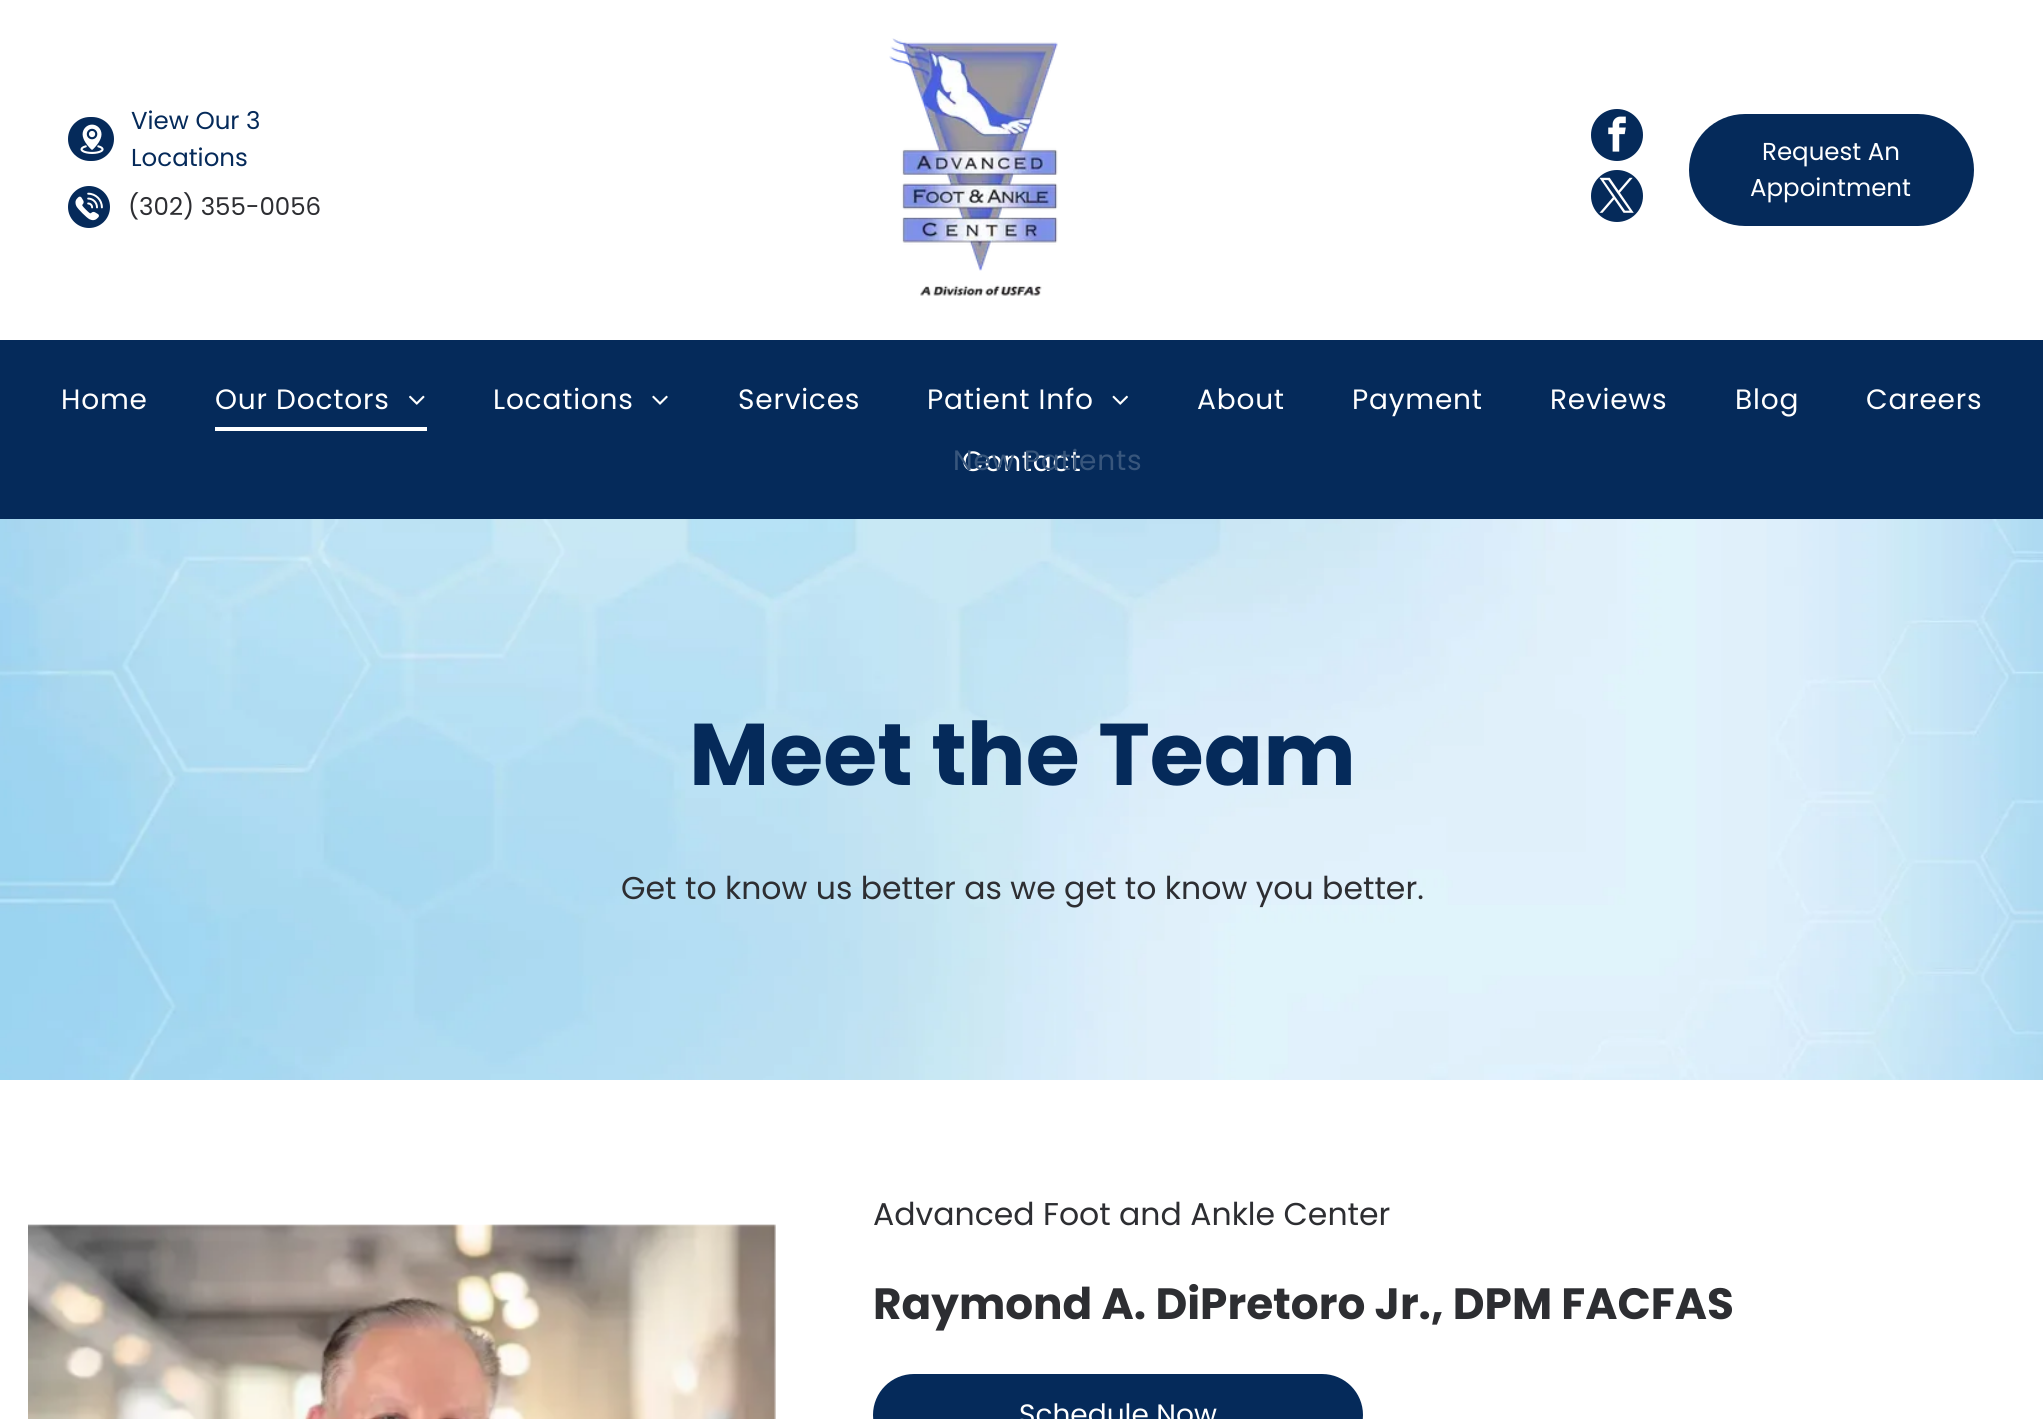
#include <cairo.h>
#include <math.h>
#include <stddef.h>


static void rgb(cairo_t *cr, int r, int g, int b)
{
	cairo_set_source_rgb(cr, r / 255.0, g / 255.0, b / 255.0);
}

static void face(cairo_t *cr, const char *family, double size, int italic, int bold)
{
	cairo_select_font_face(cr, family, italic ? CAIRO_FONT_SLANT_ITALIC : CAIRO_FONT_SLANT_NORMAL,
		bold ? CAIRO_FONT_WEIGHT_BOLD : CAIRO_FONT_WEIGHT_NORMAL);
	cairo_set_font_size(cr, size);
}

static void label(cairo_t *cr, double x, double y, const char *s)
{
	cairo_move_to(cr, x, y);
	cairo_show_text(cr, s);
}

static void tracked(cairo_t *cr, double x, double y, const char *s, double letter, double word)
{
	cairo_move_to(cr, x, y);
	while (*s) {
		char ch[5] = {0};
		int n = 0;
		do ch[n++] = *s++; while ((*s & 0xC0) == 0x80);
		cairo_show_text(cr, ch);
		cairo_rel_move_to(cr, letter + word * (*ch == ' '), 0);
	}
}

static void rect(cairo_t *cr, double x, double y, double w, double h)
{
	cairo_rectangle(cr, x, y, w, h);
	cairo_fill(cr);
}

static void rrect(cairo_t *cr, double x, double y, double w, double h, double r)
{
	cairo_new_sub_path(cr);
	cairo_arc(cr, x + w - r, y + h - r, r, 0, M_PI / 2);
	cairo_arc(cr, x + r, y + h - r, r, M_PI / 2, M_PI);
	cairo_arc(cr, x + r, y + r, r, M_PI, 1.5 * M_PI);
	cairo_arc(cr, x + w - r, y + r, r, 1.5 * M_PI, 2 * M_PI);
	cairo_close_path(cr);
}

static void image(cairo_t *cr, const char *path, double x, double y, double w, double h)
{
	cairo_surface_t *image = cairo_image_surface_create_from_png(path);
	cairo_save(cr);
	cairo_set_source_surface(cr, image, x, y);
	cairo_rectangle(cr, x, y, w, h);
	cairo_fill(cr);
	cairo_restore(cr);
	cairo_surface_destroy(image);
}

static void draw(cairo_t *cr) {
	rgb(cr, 255, 255, 255);
	cairo_paint(cr);
	rgb(cr, 5, 42, 90);
	rrect(cr, 68, 117, 46, 44, 22);
	cairo_fill(cr);
	image(cr, "image0.png", 80, 124, 24, 30);
	face(cr, "Poppins", 24.5, 0, 0);
	label(cr, 131, 129, "View Our 3");
	label(cr, 131, 166, "Locations");
	cairo_new_path(cr);
	cairo_arc(cr, 89, 207, 21, 0, 2 * M_PI);
	cairo_fill(cr);
	image(cr, "image1.png", 75, 192, 28, 29);
	rgb(cr, 45, 46, 50);
	label(cr, 128, 215, "(302) 355-0056");
	image(cr, "image2.png", 889, 38, 169, 258);
	rgb(cr, 5, 42, 90);
	cairo_arc(cr, 1617, 135, 26, 0, 2 * M_PI);
	cairo_fill(cr);
	image(cr, "image3.png", 1608, 116, 18, 36);
	cairo_arc(cr, 1617, 196, 26, 0, 2 * M_PI);
	cairo_fill(cr);
	image(cr, "image4.png", 1599, 177, 35, 36);
	rrect(cr, 1689, 114, 285, 112, 56);
	cairo_fill(cr);
	rgb(cr, 255, 255, 255);
	label(cr, 1762, 160, "Request An");
	label(cr, 1750, 196, "Appointment");
	rgb(cr, 5, 42, 90);
	rect(cr, 0, 340, 2043, 179);
	face(cr, "Poppins", 28, 0, 0);
	rgb(cr, 255, 255, 255);
	tracked(cr, 61, 409, "Home", 0.8, 0);
	tracked(cr, 215, 409, "Our Doctors", 0.8, 0);
	image(cr, "image5.png", 409, 395, 16, 10);
	rect(cr, 215, 427, 212, 4);
	tracked(cr, 493, 409, "Locations", 0.8, 0);
	image(cr, "image6.png", 652, 395, 16, 10);
	tracked(cr, 738, 409, "Services", 0.8, 0);
	tracked(cr, 927, 409, "Patient Info", 0.8, 0);
	image(cr, "image7.png", 1112, 395, 16, 10);
	tracked(cr, 962, 471, "Contact", 0.8, 0);
	rgb(cr, 56, 86, 124);
	tracked(cr, 953, 470, "New Patients", 0.8, 0);
	rgb(cr, 255, 255, 255);
	tracked(cr, 1197, 409, "About", 0.8, 0);
	tracked(cr, 1352, 409, "Payment", 0.8, 0);
	tracked(cr, 1550, 409, "Reviews", 0.8, 0);
	tracked(cr, 1735, 409, "Blog", 0.8, 0);
	tracked(cr, 1866, 409, "Careers", 0.8, 0);
	image(cr, "image8.png", 0, 519, 2043, 561);
	face(cr, "Poppins", 87.5, 0, 1);
	rgb(cr, 5, 42, 90);
	label(cr, 689, 785, "Meet the Team");
	face(cr, "Poppins", 31.5, 0, 0);
	rgb(cr, 45, 46, 50);
	label(cr, 621, 899, "Get to know us better as we get to know you better.");
	image(cr, "image9.png", 28, 1224, 748, 195);
	label(cr, 873, 1225, "Advanced Foot and Ankle Center");
	face(cr, "Poppins", 43.75, 0, 1);
	label(cr, 873, 1319, "Raymond A. DiPretoro Jr., DPM FACFAS");
	rgb(cr, 5, 42, 90);
	rrect(cr, 873, 1374, 490, 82, 41);
	cairo_fill(cr);
	face(cr, "Poppins", 28, 0, 0);
	rgb(cr, 255, 255, 255);
	label(cr, 1019, 1424, "Schedule Now");
}

int main(void) {
	cairo_surface_t *surface = cairo_image_surface_create(CAIRO_FORMAT_RGB24, 2043, 1419);
	cairo_t *cr = cairo_create(surface);
	cairo_font_options_t *options = cairo_font_options_create();
	cairo_font_options_set_hint_metrics(options, CAIRO_HINT_METRICS_OFF);
	cairo_font_options_set_hint_style(options, CAIRO_HINT_STYLE_NONE);
	cairo_set_font_options(cr, options);
	cairo_set_miter_limit(cr, 4);
	draw(cr);
	cairo_surface_write_to_png(surface, "render.png");
	cairo_font_options_destroy(options);
	cairo_destroy(cr);
	cairo_surface_destroy(surface);
	return 0;
}
